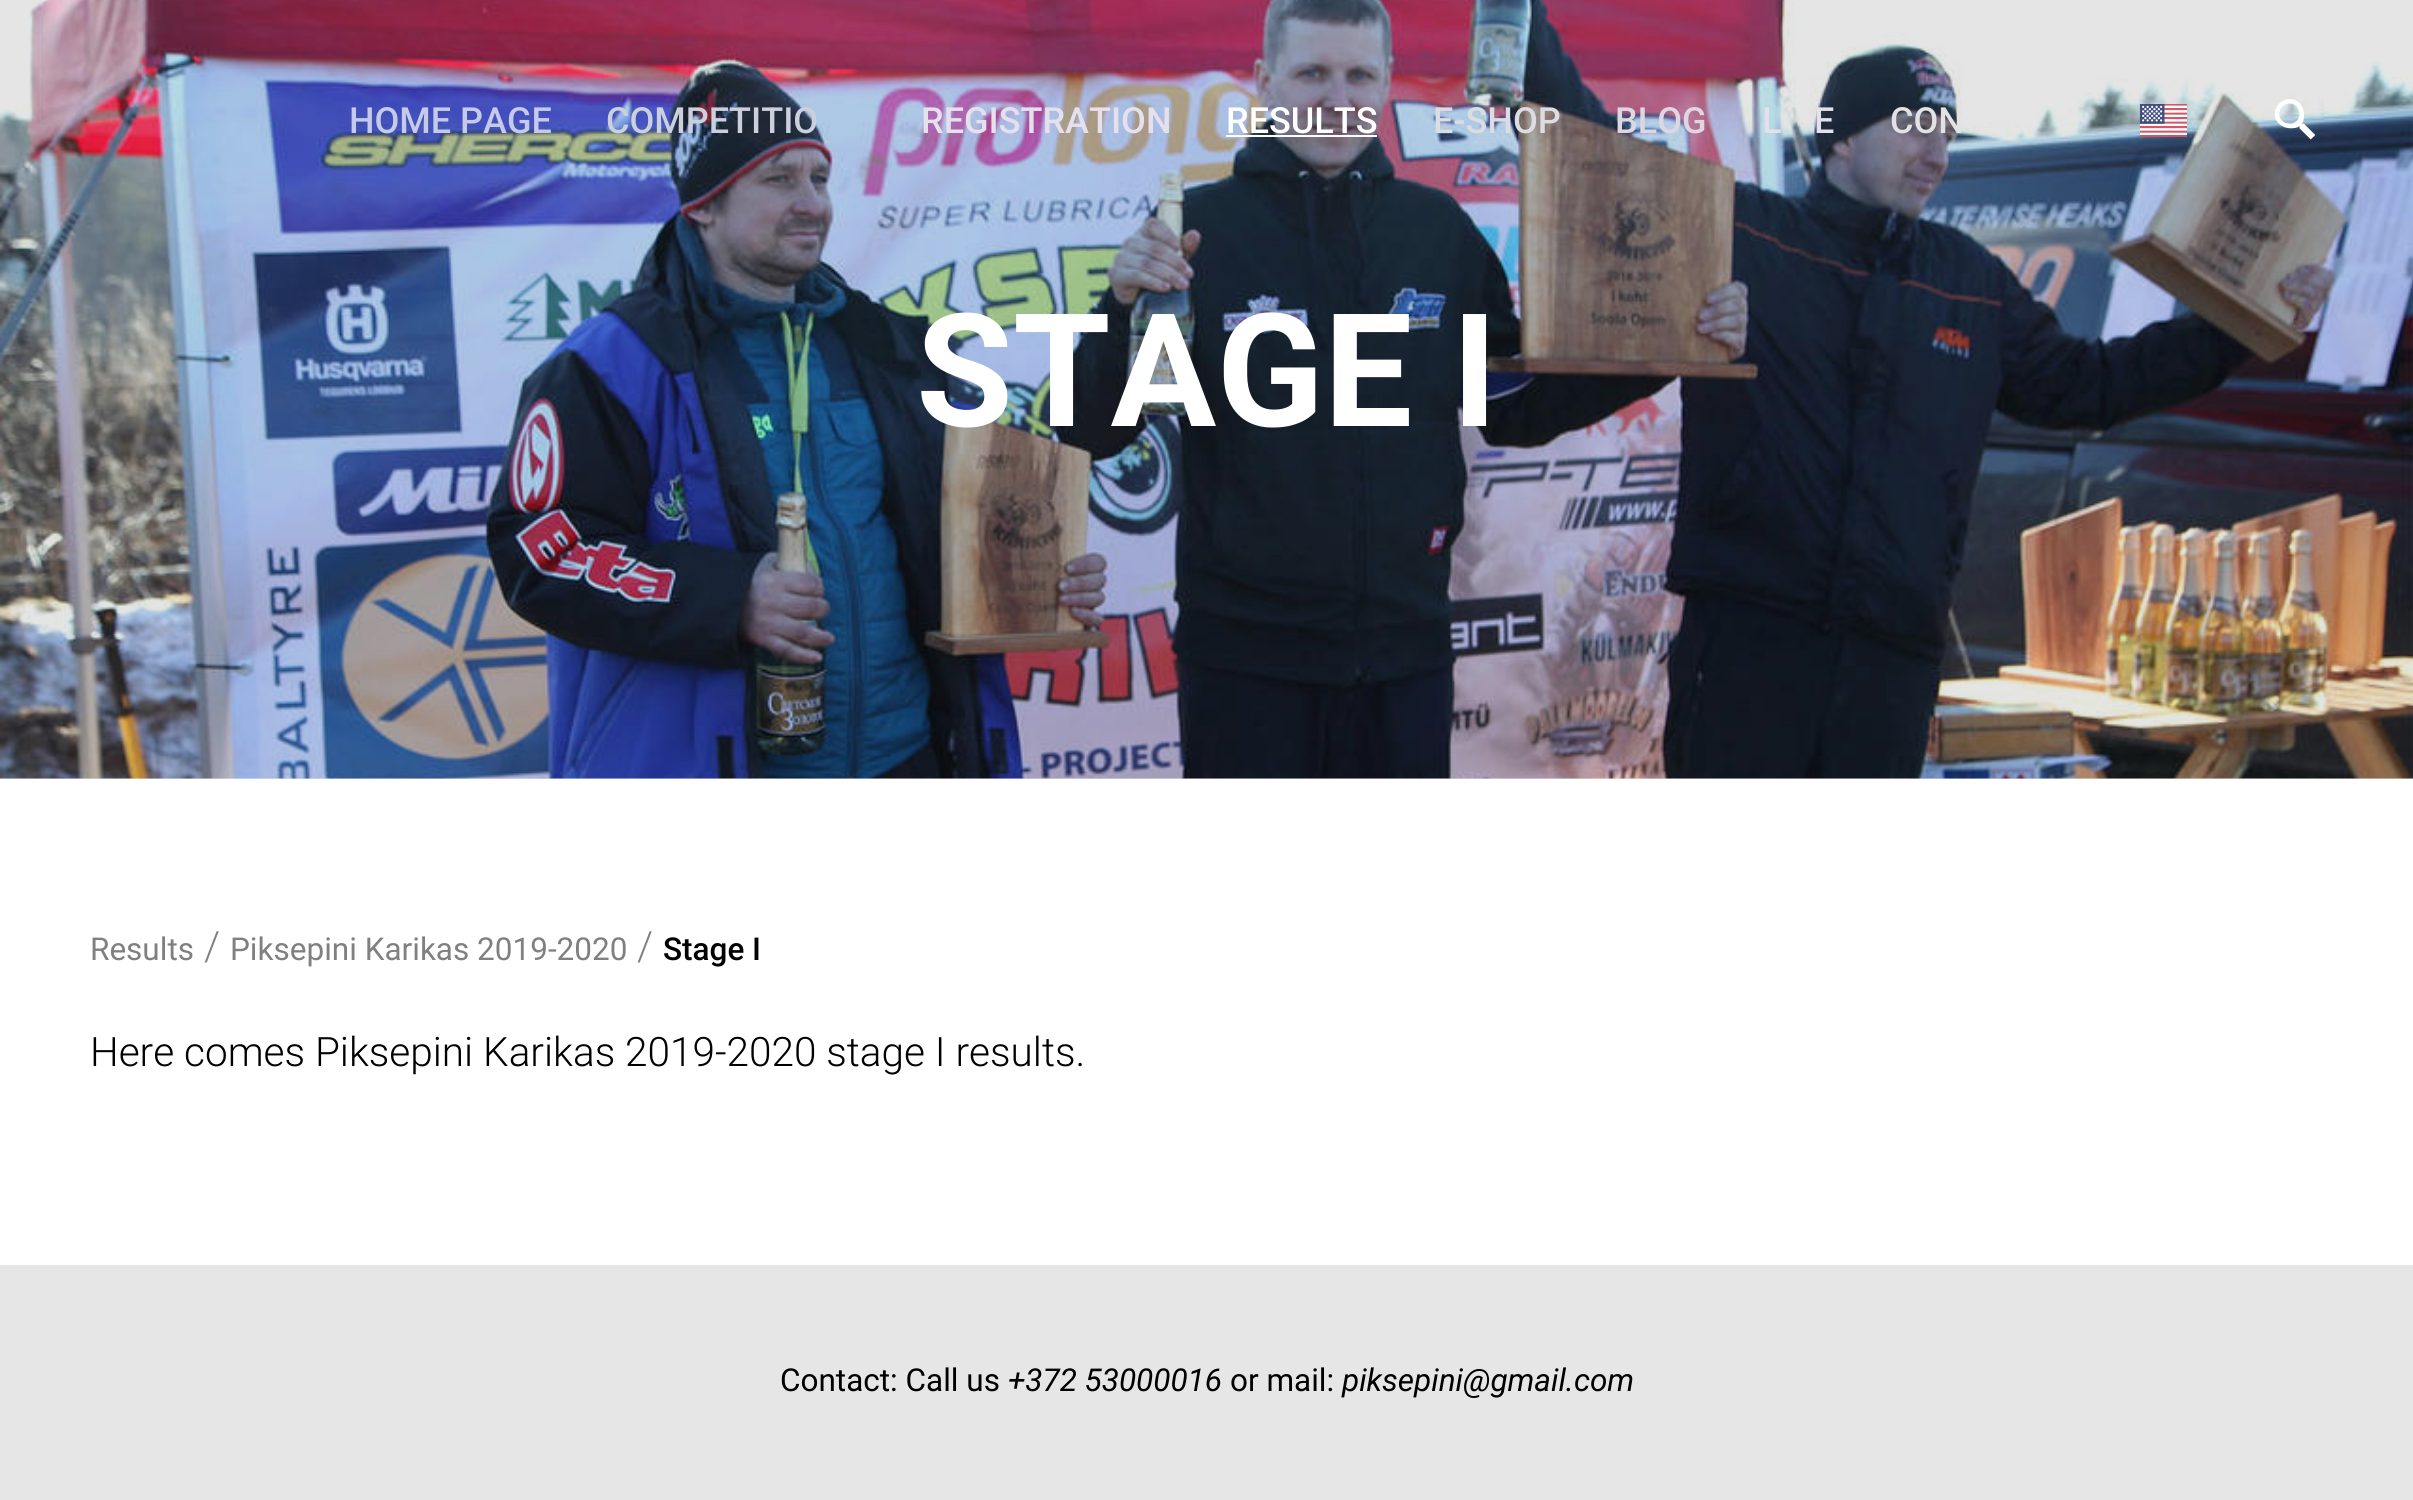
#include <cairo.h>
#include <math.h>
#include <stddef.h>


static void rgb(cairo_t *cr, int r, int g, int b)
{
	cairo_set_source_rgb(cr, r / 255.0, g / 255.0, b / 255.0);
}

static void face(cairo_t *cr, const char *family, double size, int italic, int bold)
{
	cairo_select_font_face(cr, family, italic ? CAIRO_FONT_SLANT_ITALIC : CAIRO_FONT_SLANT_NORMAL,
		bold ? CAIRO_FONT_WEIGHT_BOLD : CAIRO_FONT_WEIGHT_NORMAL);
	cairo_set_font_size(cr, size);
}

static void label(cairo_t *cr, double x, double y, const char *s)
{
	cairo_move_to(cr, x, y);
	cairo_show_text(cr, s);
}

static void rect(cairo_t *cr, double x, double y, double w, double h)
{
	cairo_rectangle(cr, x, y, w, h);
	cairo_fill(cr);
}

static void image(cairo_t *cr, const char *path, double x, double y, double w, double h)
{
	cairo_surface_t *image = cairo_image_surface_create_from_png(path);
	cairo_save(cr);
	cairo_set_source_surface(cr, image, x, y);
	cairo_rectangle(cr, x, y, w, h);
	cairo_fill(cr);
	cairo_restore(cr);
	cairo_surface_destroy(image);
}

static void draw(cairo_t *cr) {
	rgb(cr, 255, 255, 255);
	cairo_paint(cr);
	rgb(cr, 230, 230, 230);
	rect(cr, 0, 778, 2413, 1);
	image(cr, "image0.png", 0, 0, 2413, 779);
	face(cr, "Roboto Medium", 36, 0, 0);
	rgb(cr, 198, 202, 233);
	label(cr, 349, 133, "HOME PAGE");
	rgb(cr, 204, 208, 220);
	label(cr, 606, 133, "COMPETITIO");
	rgb(cr, 229, 225, 236);
	label(cr, 921, 133, "REGISTRATION");
	rgb(cr, 255, 255, 255);
	label(cr, 1226, 133, "RESULTS");
	rect(cr, 1226, 135, 151, 2);
	rgb(cr, 219, 221, 226);
	label(cr, 1433, 133, "E-SHOP");
	rgb(cr, 222, 215, 225);
	label(cr, 1615, 133, "BLOG");
	rgb(cr, 229, 225, 236);
	label(cr, 1762, 133, "L");
	label(cr, 1814, 133, "E");
	rgb(cr, 226, 226, 228);
	label(cr, 1890, 133, "CON");
	image(cr, "image1.png", 2140, 104, 47, 33);
	image(cr, "image2.png", 2275, 99, 40, 41);
	face(cr, "Roboto", 157.5, 0, 1);
	rgb(cr, 255, 255, 255);
	label(cr, 916, 426, "STAGE I");
	face(cr, "Roboto", 31.5, 0, 0);
	rgb(cr, 128, 128, 128);
	label(cr, 90, 960, "Results");
	face(cr, "Roboto Light", 40.5, 0, 0);
	label(cr, 204, 960, "/");
	face(cr, "Roboto", 31.5, 0, 0);
	label(cr, 230, 960, "Piksepini Karikas 2019-2020");
	face(cr, "Roboto Light", 40.5, 0, 0);
	label(cr, 637, 960, "/");
	face(cr, "Roboto Medium", 31.5, 0, 0);
	rgb(cr, 0, 0, 0);
	label(cr, 663, 960, "Stage I");
	face(cr, "Roboto Light", 40.5, 0, 0);
	label(cr, 90, 1066, "Here comes Piksepini Karikas 2019-2020 stage I results.");
	rgb(cr, 230, 230, 230);
	rect(cr, 0, 1265, 2413, 235);
	face(cr, "Roboto", 31.5, 0, 0);
	rgb(cr, 0, 0, 0);
	label(cr, 780, 1391, "Contact: Call us");
	face(cr, "Roboto", 31.5, 1, 0);
	label(cr, 1008, 1391, "+372 53000016");
	face(cr, "Roboto", 31.5, 0, 0);
	label(cr, 1230, 1391, "or mail:");
	face(cr, "Roboto", 31.5, 1, 0);
	label(cr, 1342, 1391, "piksepini@gmail.com");
}

int main(void) {
	cairo_surface_t *surface = cairo_image_surface_create(CAIRO_FORMAT_RGB24, 2413, 1500);
	cairo_t *cr = cairo_create(surface);
	cairo_font_options_t *options = cairo_font_options_create();
	cairo_font_options_set_hint_metrics(options, CAIRO_HINT_METRICS_OFF);
	cairo_font_options_set_hint_style(options, CAIRO_HINT_STYLE_NONE);
	cairo_set_font_options(cr, options);
	cairo_set_miter_limit(cr, 4);
	draw(cr);
	cairo_surface_write_to_png(surface, "render.png");
	cairo_font_options_destroy(options);
	cairo_destroy(cr);
	cairo_surface_destroy(surface);
	return 0;
}
